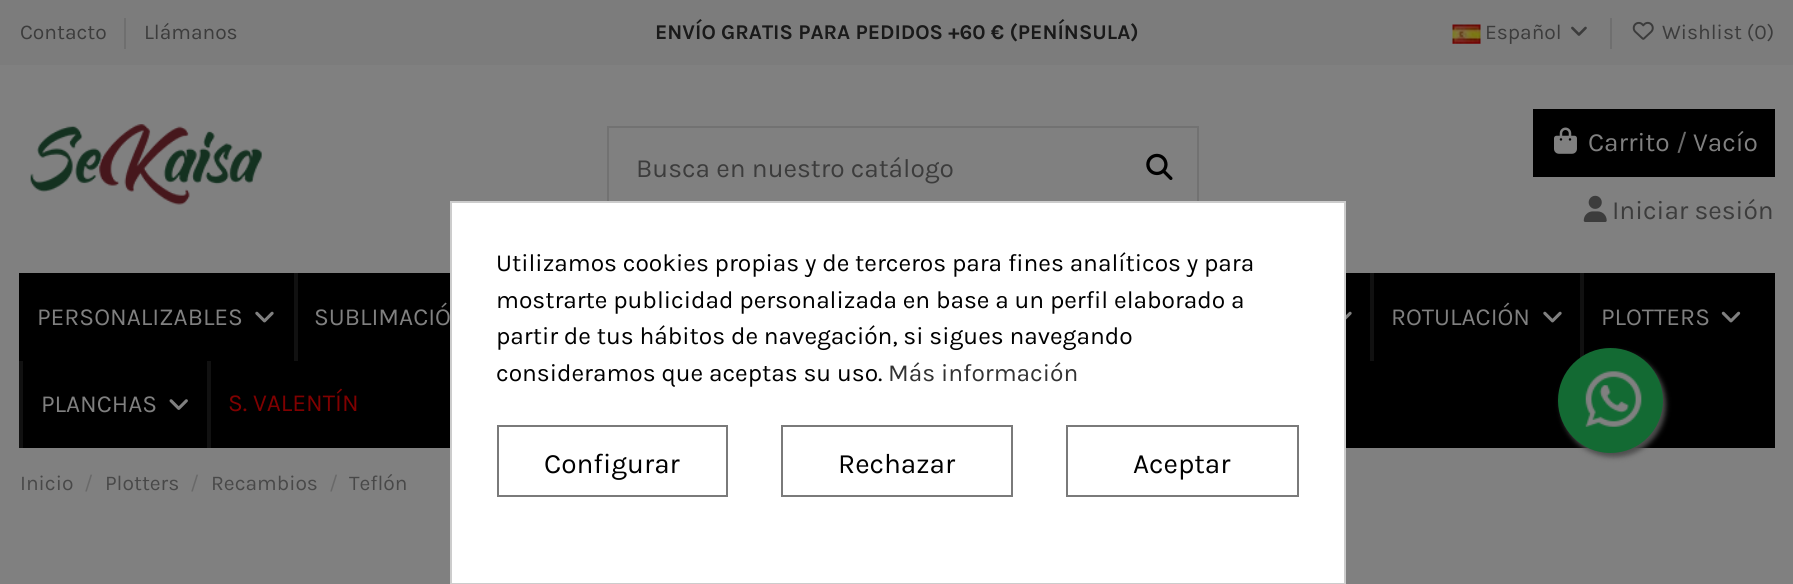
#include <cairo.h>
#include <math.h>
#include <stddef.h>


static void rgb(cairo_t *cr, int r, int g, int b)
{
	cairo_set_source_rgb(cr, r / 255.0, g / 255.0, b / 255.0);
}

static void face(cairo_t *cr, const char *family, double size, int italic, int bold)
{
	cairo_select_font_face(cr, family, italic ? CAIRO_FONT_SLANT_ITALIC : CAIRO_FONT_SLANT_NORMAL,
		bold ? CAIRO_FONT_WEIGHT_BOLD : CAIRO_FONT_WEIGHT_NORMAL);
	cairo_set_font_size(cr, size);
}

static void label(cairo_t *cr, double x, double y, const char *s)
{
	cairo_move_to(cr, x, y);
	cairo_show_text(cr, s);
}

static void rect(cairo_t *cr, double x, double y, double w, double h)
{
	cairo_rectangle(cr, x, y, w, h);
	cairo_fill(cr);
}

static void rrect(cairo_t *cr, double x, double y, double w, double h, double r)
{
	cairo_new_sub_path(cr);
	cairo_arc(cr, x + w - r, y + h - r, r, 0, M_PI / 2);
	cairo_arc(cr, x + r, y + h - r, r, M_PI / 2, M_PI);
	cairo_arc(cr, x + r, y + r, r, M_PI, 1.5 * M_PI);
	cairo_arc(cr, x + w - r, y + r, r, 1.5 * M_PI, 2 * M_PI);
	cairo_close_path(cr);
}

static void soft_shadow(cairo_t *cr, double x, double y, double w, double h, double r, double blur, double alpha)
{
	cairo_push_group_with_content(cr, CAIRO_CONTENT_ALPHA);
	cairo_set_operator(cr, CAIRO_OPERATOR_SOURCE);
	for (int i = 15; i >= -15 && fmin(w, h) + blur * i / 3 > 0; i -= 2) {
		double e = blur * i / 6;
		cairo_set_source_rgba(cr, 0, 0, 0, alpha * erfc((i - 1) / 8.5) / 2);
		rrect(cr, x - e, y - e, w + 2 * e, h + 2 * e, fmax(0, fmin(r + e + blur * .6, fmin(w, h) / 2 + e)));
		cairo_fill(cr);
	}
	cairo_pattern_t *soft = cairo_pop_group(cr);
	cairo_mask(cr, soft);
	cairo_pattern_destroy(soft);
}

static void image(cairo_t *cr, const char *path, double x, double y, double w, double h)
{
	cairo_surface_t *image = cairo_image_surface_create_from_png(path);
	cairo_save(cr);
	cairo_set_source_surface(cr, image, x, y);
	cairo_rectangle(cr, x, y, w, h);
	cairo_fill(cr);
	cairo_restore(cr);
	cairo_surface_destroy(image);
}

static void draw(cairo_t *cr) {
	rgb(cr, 128, 128, 128);
	cairo_paint(cr);
	rgb(cr, 124, 124, 124);
	rect(cr, 0, 0, 1793, 65);
	face(cr, "Karla", 21, 0, 0);
	rgb(cr, 60, 60, 60);
	label(cr, 20, 39, "Contacto");
	rgb(cr, 111, 111, 111);
	rect(cr, 124, 18, 2, 31);
	rgb(cr, 60, 60, 60);
	label(cr, 144, 39, "Llámanos");
	face(cr, "Karla", 21, 0, 1);
	rgb(cr, 26, 26, 26);
	label(cr, 655, 39, "ENVÍO GRATIS PARA PEDIDOS +60 € (PENÍNSULA)");
	image(cr, "image0.png", 1452, 24, 29, 20);
	face(cr, "Karla", 21, 0, 0);
	rgb(cr, 60, 60, 60);
	label(cr, 1485, 39, "Español");
	image(cr, "image1.png", 1571, 26, 16, 10);
	rgb(cr, 111, 111, 111);
	rect(cr, 1610, 18, 2, 31);
	image(cr, "image2.png", 1632, 21, 22, 19);
	rgb(cr, 60, 60, 60);
	label(cr, 1662, 39, "Wishlist (0)");
	image(cr, "image3.png", 30, 124, 232, 81);
	cairo_rectangle(cr, 608, 127, 590, 84);
	rgb(cr, 114, 114, 114);
	cairo_stroke(cr);
	face(cr, "Karla", 26.25, 0, 0);
	rgb(cr, 60, 60, 60);
	label(cr, 636, 177, "Busca en nuestro catálogo");
	image(cr, "image4.png", 1146, 153, 27, 27);
	rgb(cr, 0, 0, 0);
	rect(cr, 1533, 109, 242, 68);
	image(cr, "image5.png", 1554, 127, 23, 27);
	rgb(cr, 128, 128, 128);
	label(cr, 1588, 151, "Carrito");
	rgb(cr, 105, 105, 105);
	label(cr, 1676, 151, "/");
	rgb(cr, 128, 128, 128);
	label(cr, 1693, 151, "Vacío");
	image(cr, "image6.png", 1583, 195, 24, 27);
	rgb(cr, 60, 60, 60);
	label(cr, 1612, 219, "Iniciar sesión");
	rgb(cr, 0, 0, 0);
	rect(cr, 19, 273, 1756, 175);
	face(cr, "Karla", 24.5, 0, 0);
	rgb(cr, 128, 128, 128);
	label(cr, 37, 325, "PERSONALIZABLES");
	image(cr, "image7.png", 255, 311, 19, 12);
	rgb(cr, 17, 17, 17);
	rect(cr, 294, 273, 4, 88);
	rgb(cr, 128, 128, 128);
	label(cr, 314, 325, "SUBLIMACIÓ");
	image(cr, "image8.png", 1346, 311, 6, 9);
	rgb(cr, 17, 17, 17);
	rect(cr, 1370, 273, 4, 88);
	rgb(cr, 128, 128, 128);
	label(cr, 1391, 325, "ROTULACIÓN");
	image(cr, "image7.png", 1543, 311, 19, 12);
	rgb(cr, 17, 17, 17);
	rect(cr, 1580, 273, 4, 88);
	rgb(cr, 128, 128, 128);
	label(cr, 1601, 325, "PLOTTERS");
	image(cr, "image9.png", 1721, 311, 20, 12);
	rgb(cr, 17, 17, 17);
	rect(cr, 19, 361, 4, 87);
	rgb(cr, 128, 128, 128);
	label(cr, 41, 412, "PLANCHAS");
	image(cr, "image10.png", 169, 399, 19, 11);
	rgb(cr, 17, 17, 17);
	rect(cr, 207, 361, 4, 87);
	rgb(cr, 128, 0, 0);
	label(cr, 228, 411, "S. VALENTÍN");
	face(cr, "Karla", 21, 0, 0);
	rgb(cr, 72, 72, 72);
	label(cr, 20, 490, "Inicio");
	rgb(cr, 105, 105, 105);
	label(cr, 84, 490, "/");
	rgb(cr, 72, 72, 72);
	label(cr, 105, 490, "Plotters");
	rgb(cr, 105, 105, 105);
	label(cr, 190, 490, "/");
	rgb(cr, 72, 72, 72);
	label(cr, 211, 490, "Recambios");
	rgb(cr, 105, 105, 105);
	label(cr, 329, 490, "/");
	rgb(cr, 72, 72, 72);
	label(cr, 349, 490, "Teflón");
	rgb(cr, 255, 255, 255);
	cairo_rectangle(cr, 451, 202, 894, 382);
	cairo_fill_preserve(cr);
	rgb(cr, 204, 204, 204);
	cairo_stroke(cr);
	face(cr, "Karla", 24.5, 0, 0);
	rgb(cr, 0, 0, 0);
	label(cr, 496, 271, "Utilizamos cookies propias y de terceros para fines analíticos y para");
	label(cr, 496, 308, "mostrarte publicidad personalizada en base a un perfil elaborado a");
	label(cr, 496, 344, "partir de tus hábitos de navegación, si sigues navegando");
	label(cr, 496, 381, "consideramos que aceptas su uso.");
	rgb(cr, 51, 51, 51);
	label(cr, 888, 381, "Más información");
	cairo_rectangle(cr, 498, 426, 229, 70);
	rgb(cr, 122, 122, 122);
	cairo_stroke(cr);
	face(cr, "Karla", 28, 0, 0);
	rgb(cr, 0, 0, 0);
	label(cr, 544, 473, "Configurar");
	cairo_rectangle(cr, 782, 426, 230, 70);
	rgb(cr, 122, 122, 122);
	cairo_stroke(cr);
	rgb(cr, 0, 0, 0);
	label(cr, 838, 473, "Rechazar");
	cairo_rectangle(cr, 1067, 426, 231, 70);
	rgb(cr, 122, 122, 122);
	cairo_stroke(cr);
	rgb(cr, 0, 0, 0);
	label(cr, 1133, 473, "Aceptar");
	rgb(cr, 77, 77, 77);
	soft_shadow(cr, 1561, 352, 105, 105, 52.5, 2.5, 1);
	rgb(cr, 19, 106, 51);
	cairo_arc(cr, 1610.5, 400.5, 52.5, 0, 2 * M_PI);
	cairo_fill(cr);
	image(cr, "image11.png", 1585, 371, 57, 56);
}

int main(void) {
	cairo_surface_t *surface = cairo_image_surface_create(CAIRO_FORMAT_RGB24, 1793, 584);
	cairo_t *cr = cairo_create(surface);
	cairo_font_options_t *options = cairo_font_options_create();
	cairo_font_options_set_hint_metrics(options, CAIRO_HINT_METRICS_OFF);
	cairo_font_options_set_hint_style(options, CAIRO_HINT_STYLE_NONE);
	cairo_set_font_options(cr, options);
	cairo_set_miter_limit(cr, 4);
	draw(cr);
	cairo_surface_write_to_png(surface, "render.png");
	cairo_font_options_destroy(options);
	cairo_destroy(cr);
	cairo_surface_destroy(surface);
	return 0;
}
